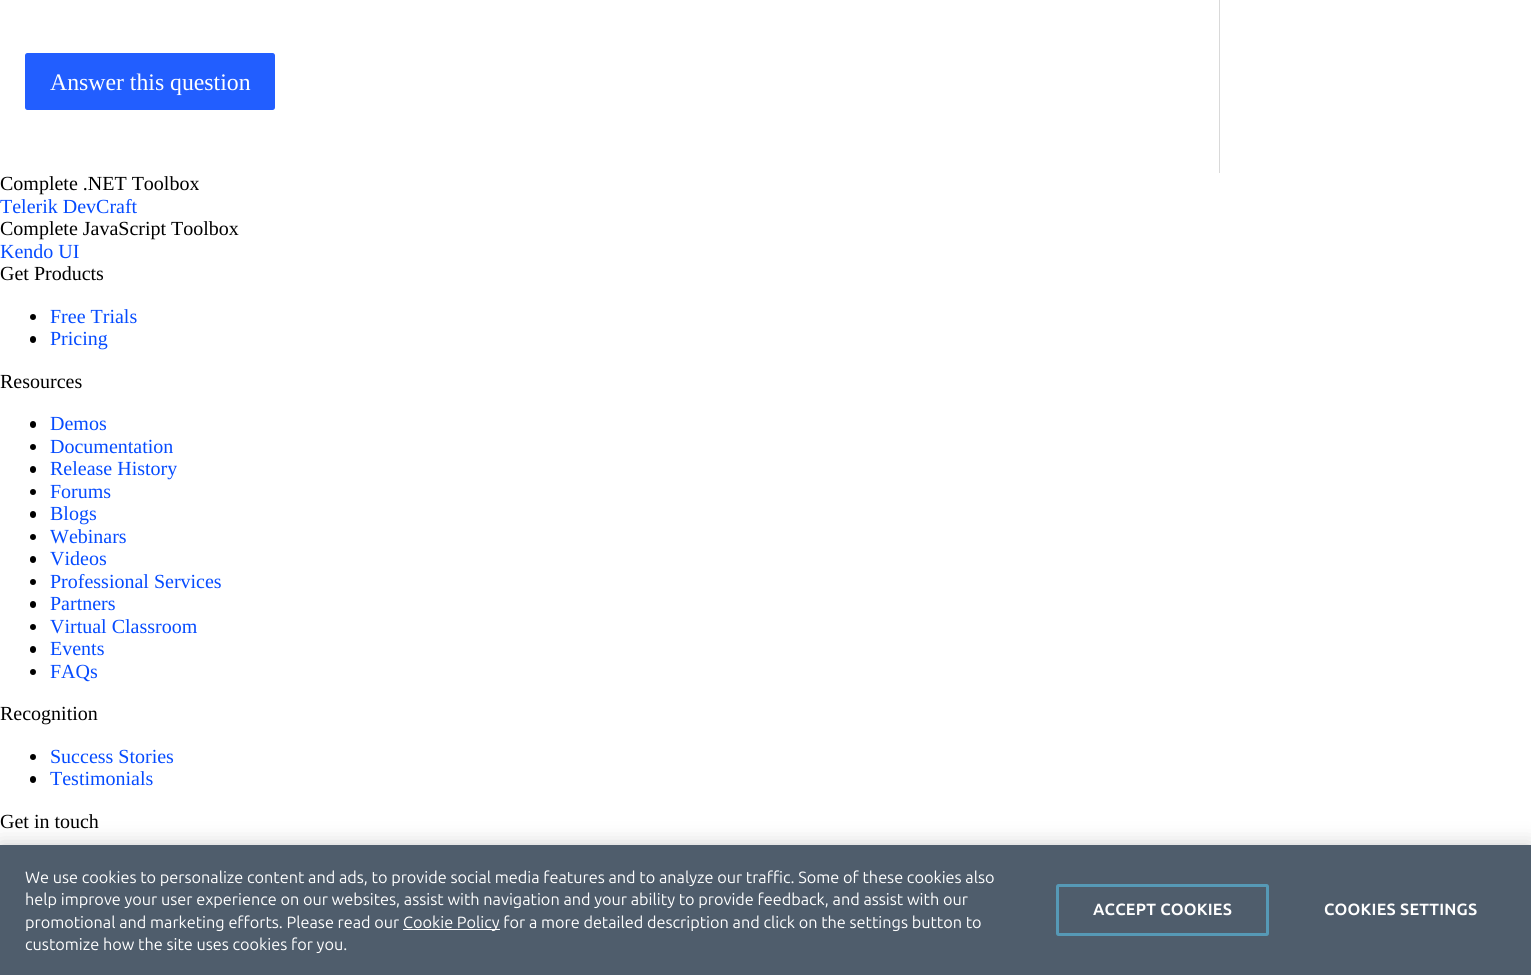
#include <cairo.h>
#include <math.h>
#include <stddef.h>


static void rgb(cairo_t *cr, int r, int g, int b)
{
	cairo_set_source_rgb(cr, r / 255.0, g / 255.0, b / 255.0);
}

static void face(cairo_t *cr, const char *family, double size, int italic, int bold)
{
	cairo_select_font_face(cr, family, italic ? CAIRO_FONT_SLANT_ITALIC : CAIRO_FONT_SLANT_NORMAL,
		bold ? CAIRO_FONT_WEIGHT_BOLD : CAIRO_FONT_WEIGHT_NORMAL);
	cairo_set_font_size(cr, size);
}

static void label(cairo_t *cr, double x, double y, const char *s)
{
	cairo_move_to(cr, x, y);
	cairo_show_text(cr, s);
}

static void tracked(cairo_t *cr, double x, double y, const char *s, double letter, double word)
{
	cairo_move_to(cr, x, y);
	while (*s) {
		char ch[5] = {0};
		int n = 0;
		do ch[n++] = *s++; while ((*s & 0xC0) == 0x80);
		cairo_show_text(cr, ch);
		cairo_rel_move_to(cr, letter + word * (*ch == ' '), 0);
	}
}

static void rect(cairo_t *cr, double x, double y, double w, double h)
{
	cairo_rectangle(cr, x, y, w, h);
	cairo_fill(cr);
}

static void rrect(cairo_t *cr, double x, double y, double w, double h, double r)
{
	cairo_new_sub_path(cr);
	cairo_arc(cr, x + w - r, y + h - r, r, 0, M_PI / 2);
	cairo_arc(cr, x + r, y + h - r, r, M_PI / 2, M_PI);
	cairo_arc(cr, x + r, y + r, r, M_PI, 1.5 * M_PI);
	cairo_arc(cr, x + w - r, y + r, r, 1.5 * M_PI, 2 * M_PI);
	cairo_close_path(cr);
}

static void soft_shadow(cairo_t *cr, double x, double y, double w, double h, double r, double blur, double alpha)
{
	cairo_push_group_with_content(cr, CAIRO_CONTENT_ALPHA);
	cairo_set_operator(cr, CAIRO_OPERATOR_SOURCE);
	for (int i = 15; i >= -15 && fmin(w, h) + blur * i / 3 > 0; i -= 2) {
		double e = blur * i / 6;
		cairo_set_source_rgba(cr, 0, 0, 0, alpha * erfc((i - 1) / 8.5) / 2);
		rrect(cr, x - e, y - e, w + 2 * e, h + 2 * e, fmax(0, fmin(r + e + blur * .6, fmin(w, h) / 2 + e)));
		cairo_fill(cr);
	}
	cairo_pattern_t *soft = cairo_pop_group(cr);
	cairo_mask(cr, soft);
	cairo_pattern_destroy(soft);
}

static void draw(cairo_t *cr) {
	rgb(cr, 255, 255, 255);
	cairo_paint(cr);
	rgb(cr, 34, 94, 255);
	rrect(cr, 25, 53, 250, 57, 2.5);
	cairo_fill(cr);
	face(cr, "Liberation Serif", 23.75, 0, 0);
	rgb(cr, 255, 255, 255);
	label(cr, 50, 90, "Answer this question");
	rgb(cr, 217, 217, 217);
	rect(cr, 1219, 0, 1, 173);
	face(cr, "Liberation Serif", 20, 0, 0);
	rgb(cr, 0, 0, 0);
	label(cr, 0, 190, "Complete .NET Toolbox");
	rgb(cr, 5, 75, 255);
	label(cr, 0, 213, "Telerik DevCraft");
	rgb(cr, 0, 0, 0);
	label(cr, 0, 235, "Complete JavaScript Toolbox");
	rgb(cr, 5, 75, 255);
	label(cr, 0, 258, "Kendo UI");
	rgb(cr, 0, 0, 0);
	label(cr, 0, 280, "Get Products");
	cairo_new_path(cr);
	cairo_arc(cr, 33, 317, 3, 0, 2 * M_PI);
	cairo_fill(cr);
	rgb(cr, 5, 75, 255);
	label(cr, 50, 323, "Free Trials");
	rgb(cr, 0, 0, 0);
	rrect(cr, 30, 336, 6, 7, 3);
	cairo_fill(cr);
	rgb(cr, 5, 75, 255);
	label(cr, 50, 345, "Pricing");
	rgb(cr, 0, 0, 0);
	label(cr, 0, 388, "Resources");
	rrect(cr, 30, 421, 6, 7, 3);
	cairo_fill(cr);
	rgb(cr, 5, 75, 255);
	label(cr, 50, 430, "Demos");
	rgb(cr, 0, 0, 0);
	cairo_new_path(cr);
	cairo_arc(cr, 33, 447, 3, 0, 2 * M_PI);
	cairo_fill(cr);
	rgb(cr, 5, 75, 255);
	label(cr, 50, 453, "Documentation");
	rgb(cr, 0, 0, 0);
	rrect(cr, 30, 466, 6, 7, 3);
	cairo_fill(cr);
	rgb(cr, 5, 75, 255);
	label(cr, 50, 475, "Release History");
	rgb(cr, 0, 0, 0);
	cairo_new_path(cr);
	cairo_arc(cr, 33, 492, 3, 0, 2 * M_PI);
	cairo_fill(cr);
	rgb(cr, 5, 75, 255);
	label(cr, 50, 498, "Forums");
	rgb(cr, 0, 0, 0);
	rrect(cr, 30, 511, 6, 7, 3);
	cairo_fill(cr);
	rgb(cr, 5, 75, 255);
	label(cr, 50, 520, "Blogs");
	rgb(cr, 0, 0, 0);
	cairo_new_path(cr);
	cairo_arc(cr, 33, 537, 3, 0, 2 * M_PI);
	cairo_fill(cr);
	rgb(cr, 5, 75, 255);
	label(cr, 50, 543, "Webinars");
	rgb(cr, 0, 0, 0);
	rrect(cr, 30, 556, 6, 7, 3);
	cairo_fill(cr);
	rgb(cr, 5, 75, 255);
	label(cr, 50, 565, "Videos");
	rgb(cr, 0, 0, 0);
	cairo_new_path(cr);
	cairo_arc(cr, 33, 582, 3, 0, 2 * M_PI);
	cairo_fill(cr);
	rgb(cr, 5, 75, 255);
	label(cr, 50, 588, "Professional Services");
	rgb(cr, 0, 0, 0);
	rrect(cr, 30, 601, 6, 7, 3);
	cairo_fill(cr);
	rgb(cr, 5, 75, 255);
	label(cr, 50, 610, "Partners");
	rgb(cr, 0, 0, 0);
	cairo_new_path(cr);
	cairo_arc(cr, 33, 627, 3, 0, 2 * M_PI);
	cairo_fill(cr);
	rgb(cr, 5, 75, 255);
	label(cr, 50, 633, "Virtual Classroom");
	rgb(cr, 0, 0, 0);
	rrect(cr, 30, 646, 6, 7, 3);
	cairo_fill(cr);
	rgb(cr, 5, 75, 255);
	label(cr, 50, 655, "Events");
	rgb(cr, 0, 0, 0);
	cairo_new_path(cr);
	cairo_arc(cr, 33, 672, 3, 0, 2 * M_PI);
	cairo_fill(cr);
	rgb(cr, 5, 75, 255);
	label(cr, 50, 678, "FAQs");
	rgb(cr, 0, 0, 0);
	label(cr, 0, 720, "Recognition");
	cairo_new_path(cr);
	cairo_arc(cr, 33, 757, 3, 0, 2 * M_PI);
	cairo_fill(cr);
	rgb(cr, 5, 75, 255);
	label(cr, 50, 763, "Success Stories");
	rgb(cr, 0, 0, 0);
	rrect(cr, 30, 776, 6, 7, 3);
	cairo_fill(cr);
	rgb(cr, 5, 75, 255);
	label(cr, 50, 785, "Testimonials");
	rgb(cr, 0, 0, 0);
	label(cr, 0, 828, "Get in touch");
	rgb(cr, 0, 0, 0);
	soft_shadow(cr, 0, 845, 1531, 130, 0, 11, 0.2);
	rgb(cr, 79, 93, 108);
	rect(cr, 0, 845, 1531, 130);
	face(cr, "Ubuntu", 16.25, 0, 0);
	rgb(cr, 255, 255, 255);
	label(cr, 25, 883, "We use cookies to personalize content and ads, to provide social media features and to analyze our traffic. Some of these cookies also");
	label(cr, 25, 905, "help improve your user experience on our websites, assist with navigation and your ability to provide feedback, and assist with our");
	label(cr, 25, 928, "promotional and marketing efforts. Please read our");
	rect(cr, 403, 929, 97, 1);
	label(cr, 403, 928, "Cookie Policy for a more detailed description and click on the settings button to");
	label(cr, 25, 950, "customize how the site uses cookies for you.");
	rrect(cr, 1057.5, 885.5, 210, 49, 1);
	rgb(cr, 86, 153, 182);
	cairo_set_line_width(cr, 3);
	cairo_stroke(cr);
	face(cr, "Ubuntu", 16.25, 0, 1);
	rgb(cr, 255, 255, 255);
	tracked(cr, 1093, 915, "ACCEPT COOKIES", 0.2, 0);
	tracked(cr, 1324, 915, "COOKIES SETTINGS", 0.2, 0);
}

int main(void) {
	cairo_surface_t *surface = cairo_image_surface_create(CAIRO_FORMAT_RGB24, 1531, 975);
	cairo_t *cr = cairo_create(surface);
	cairo_font_options_t *options = cairo_font_options_create();
	cairo_font_options_set_hint_metrics(options, CAIRO_HINT_METRICS_OFF);
	cairo_font_options_set_hint_style(options, CAIRO_HINT_STYLE_NONE);
	cairo_set_font_options(cr, options);
	cairo_set_miter_limit(cr, 4);
	draw(cr);
	cairo_surface_write_to_png(surface, "render.png");
	cairo_font_options_destroy(options);
	cairo_destroy(cr);
	cairo_surface_destroy(surface);
	return 0;
}
